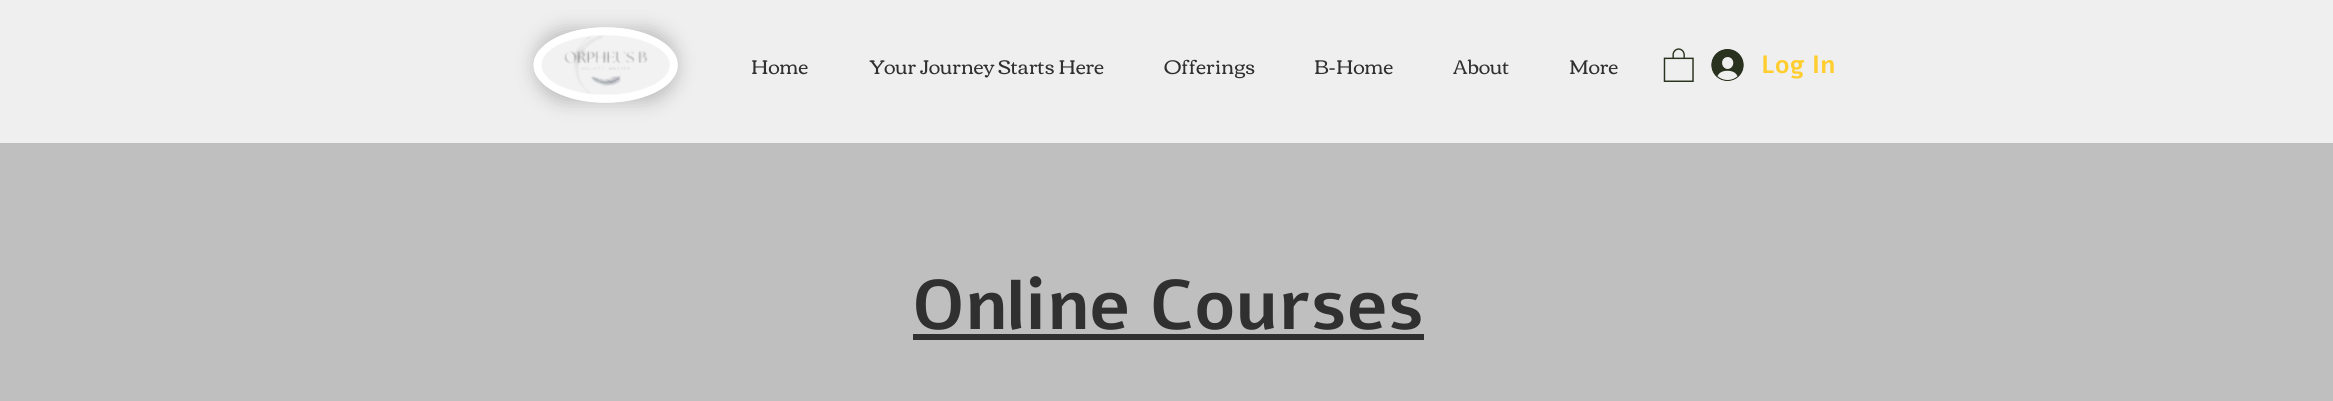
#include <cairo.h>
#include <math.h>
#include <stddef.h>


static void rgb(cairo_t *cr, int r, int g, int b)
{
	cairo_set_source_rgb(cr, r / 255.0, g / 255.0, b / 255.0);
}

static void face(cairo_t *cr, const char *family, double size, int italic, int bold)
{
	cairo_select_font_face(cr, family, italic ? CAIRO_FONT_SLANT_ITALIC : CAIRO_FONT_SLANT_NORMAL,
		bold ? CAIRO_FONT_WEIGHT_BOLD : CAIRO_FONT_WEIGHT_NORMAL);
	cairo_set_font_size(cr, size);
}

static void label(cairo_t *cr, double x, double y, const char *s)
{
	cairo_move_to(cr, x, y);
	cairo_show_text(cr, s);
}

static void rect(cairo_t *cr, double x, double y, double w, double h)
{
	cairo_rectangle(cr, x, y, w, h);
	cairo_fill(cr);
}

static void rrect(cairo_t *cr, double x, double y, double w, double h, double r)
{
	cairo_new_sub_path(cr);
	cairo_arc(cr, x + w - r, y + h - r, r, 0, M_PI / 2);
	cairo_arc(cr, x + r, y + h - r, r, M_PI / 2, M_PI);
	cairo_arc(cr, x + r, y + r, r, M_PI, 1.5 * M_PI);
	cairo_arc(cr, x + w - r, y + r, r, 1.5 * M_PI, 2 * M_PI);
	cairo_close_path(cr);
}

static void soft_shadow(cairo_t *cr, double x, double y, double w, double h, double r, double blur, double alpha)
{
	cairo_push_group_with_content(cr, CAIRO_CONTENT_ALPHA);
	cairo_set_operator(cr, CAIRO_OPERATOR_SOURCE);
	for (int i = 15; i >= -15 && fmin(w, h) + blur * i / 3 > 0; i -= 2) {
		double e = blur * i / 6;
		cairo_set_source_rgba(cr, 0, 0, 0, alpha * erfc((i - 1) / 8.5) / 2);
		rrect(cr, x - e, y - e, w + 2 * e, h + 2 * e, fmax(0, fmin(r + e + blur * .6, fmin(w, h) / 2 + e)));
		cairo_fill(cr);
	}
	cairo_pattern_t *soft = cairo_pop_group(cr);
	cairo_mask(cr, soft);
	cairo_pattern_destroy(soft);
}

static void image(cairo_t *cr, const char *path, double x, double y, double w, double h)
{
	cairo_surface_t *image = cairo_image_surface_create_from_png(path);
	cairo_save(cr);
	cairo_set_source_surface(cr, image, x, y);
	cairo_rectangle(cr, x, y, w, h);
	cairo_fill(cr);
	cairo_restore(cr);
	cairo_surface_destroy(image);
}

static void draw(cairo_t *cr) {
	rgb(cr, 239, 239, 239);
	cairo_paint(cr);
	rgb(cr, 0, 0, 0);
	soft_shadow(cr, 534, 28, 144, 75, 37.5, 9, 0.2);
	rgb(cr, 255, 255, 255);
	cairo_new_path(cr);
	cairo_move_to(cr, 605.5, 27.5);
	cairo_curve_to(cr, 645.5, 27.5, 677.5, 44.5, 677.5, 65);
	cairo_curve_to(cr, 677.5, 85.5, 645.5, 102.5, 605.5, 102.5);
	cairo_curve_to(cr, 565.5, 102.5, 533.5, 85.5, 533.5, 65);
	cairo_curve_to(cr, 533.5, 44.5, 565.5, 27.5, 605.5, 27.5);
	cairo_close_path(cr);
	cairo_fill(cr);
	cairo_new_path(cr);
	cairo_move_to(cr, 605.5, 31);
	cairo_curve_to(cr, 643, 31, 674, 46.5, 674, 65);
	cairo_curve_to(cr, 674, 83.5, 643, 99, 605.5, 99);
	cairo_curve_to(cr, 568, 99, 537.5, 83.5, 537.5, 65);
	cairo_curve_to(cr, 537.5, 46.5, 568, 31, 605.5, 31);
	cairo_close_path(cr);
	cairo_set_line_width(cr, 7.5);
	cairo_stroke(cr);
	image(cr, "image0.png", 541, 35, 129, 60);
	face(cr, "Corben", 20, 0, 0);
	rgb(cr, 48, 48, 48);
	label(cr, 751, 74, "Home");
	label(cr, 870, 74, "Your Journey Starts Here");
	label(cr, 1164, 74, "Offerings");
	label(cr, 1314, 74, "B-Home");
	label(cr, 1453, 74, "About");
	label(cr, 1569, 74, "More");
	image(cr, "image1.png", 1663, 48, 31, 34);
	image(cr, "image2.png", 1711, 49, 33, 32);
	face(cr, "Alef", 25, 0, 1);
	rgb(cr, 255, 206, 46);
	label(cr, 1761, 73, "Log In");
	rgb(cr, 191, 191, 191);
	rect(cr, 0, 143, 2333, 258);
	face(cr, "Alef", 70, 0, 1);
	rgb(cr, 48, 48, 48);
	label(cr, 912, 329, "Online Courses");
	rect(cr, 913, 334, 511, 6);
}

int main(void) {
	cairo_surface_t *surface = cairo_image_surface_create(CAIRO_FORMAT_RGB24, 2333, 401);
	cairo_t *cr = cairo_create(surface);
	cairo_font_options_t *options = cairo_font_options_create();
	cairo_font_options_set_hint_metrics(options, CAIRO_HINT_METRICS_OFF);
	cairo_font_options_set_hint_style(options, CAIRO_HINT_STYLE_NONE);
	cairo_set_font_options(cr, options);
	cairo_set_miter_limit(cr, 4);
	draw(cr);
	cairo_surface_write_to_png(surface, "render.png");
	cairo_font_options_destroy(options);
	cairo_destroy(cr);
	cairo_surface_destroy(surface);
	return 0;
}
